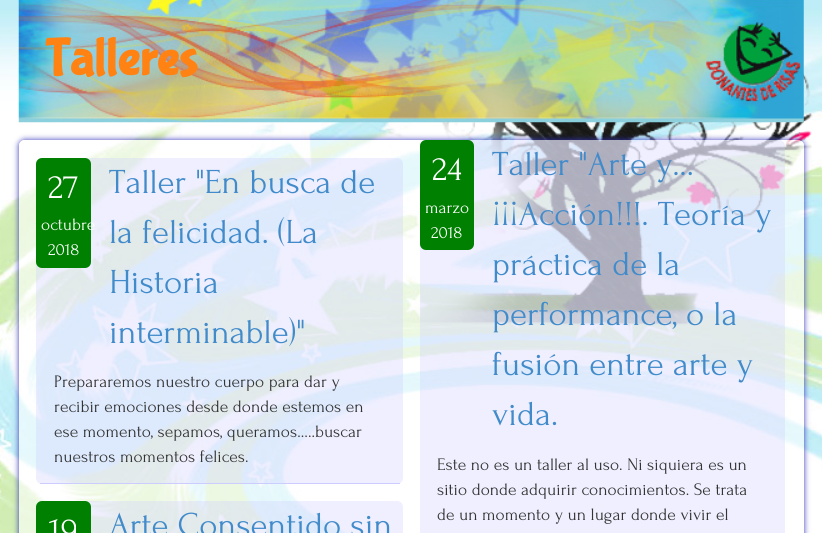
#include <cairo.h>
#include <math.h>
#include <stddef.h>


static void rgb(cairo_t *cr, int r, int g, int b)
{
	cairo_set_source_rgb(cr, r / 255.0, g / 255.0, b / 255.0);
}

static void face(cairo_t *cr, const char *family, double size, int italic, int bold)
{
	cairo_select_font_face(cr, family, italic ? CAIRO_FONT_SLANT_ITALIC : CAIRO_FONT_SLANT_NORMAL,
		bold ? CAIRO_FONT_WEIGHT_BOLD : CAIRO_FONT_WEIGHT_NORMAL);
	cairo_set_font_size(cr, size);
}

static void label(cairo_t *cr, double x, double y, const char *s)
{
	cairo_move_to(cr, x, y);
	cairo_show_text(cr, s);
}

static void rect(cairo_t *cr, double x, double y, double w, double h)
{
	cairo_rectangle(cr, x, y, w, h);
	cairo_fill(cr);
}

static void rrect(cairo_t *cr, double x, double y, double w, double h, double r)
{
	cairo_new_sub_path(cr);
	cairo_arc(cr, x + w - r, y + h - r, r, 0, M_PI / 2);
	cairo_arc(cr, x + r, y + h - r, r, M_PI / 2, M_PI);
	cairo_arc(cr, x + r, y + r, r, M_PI, 1.5 * M_PI);
	cairo_arc(cr, x + w - r, y + r, r, 1.5 * M_PI, 2 * M_PI);
	cairo_close_path(cr);
}

static void soft_shadow(cairo_t *cr, double x, double y, double w, double h, double r, double blur, double alpha)
{
	cairo_push_group_with_content(cr, CAIRO_CONTENT_ALPHA);
	cairo_set_operator(cr, CAIRO_OPERATOR_SOURCE);
	for (int i = 15; i >= -15 && fmin(w, h) + blur * i / 3 > 0; i -= 2) {
		double e = blur * i / 6;
		cairo_set_source_rgba(cr, 0, 0, 0, alpha * erfc((i - 1) / 8.5) / 2);
		rrect(cr, x - e, y - e, w + 2 * e, h + 2 * e, fmax(0, fmin(r + e + blur * .6, fmin(w, h) / 2 + e)));
		cairo_fill(cr);
	}
	cairo_pattern_t *soft = cairo_pop_group(cr);
	cairo_mask(cr, soft);
	cairo_pattern_destroy(soft);
}

static void image(cairo_t *cr, const char *path, double x, double y, double w, double h)
{
	cairo_surface_t *image = cairo_image_surface_create_from_png(path);
	cairo_save(cr);
	cairo_set_source_surface(cr, image, x, y);
	cairo_rectangle(cr, x, y, w, h);
	cairo_fill(cr);
	cairo_restore(cr);
	cairo_surface_destroy(image);
}

static void draw(cairo_t *cr) {
	rgb(cr, 255, 255, 255);
	cairo_paint(cr);
	image(cr, "image0.png", 0, 0, 822, 533);
	image(cr, "image1.png", 368, 3, 445, 323);
	image(cr, "image2.png", 18, 0, 786, 123);
	face(cr, "Bubblegum Sans", 52.5, 0, 1);
	rgb(cr, 255, 130, 19);
	label(cr, 45, 74, "Talleres");
	image(cr, "image3.png", 706, 22, 95, 80);
	cairo_save(cr);
	cairo_set_fill_rule(cr, CAIRO_FILL_RULE_EVEN_ODD);
	cairo_new_path(cr);
	cairo_move_to(cr, 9, 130);
	cairo_line_to(cr, 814, 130);
	cairo_line_to(cr, 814, 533);
	cairo_line_to(cr, 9, 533);
	cairo_close_path(cr);
	cairo_move_to(cr, 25, 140);
	cairo_line_to(cr, 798, 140);
	cairo_curve_to(cr, 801.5, 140, 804, 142.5, 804, 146);
	cairo_line_to(cr, 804, 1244);
	cairo_curve_to(cr, 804, 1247.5, 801.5, 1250, 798, 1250);
	cairo_line_to(cr, 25, 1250);
	cairo_curve_to(cr, 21.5, 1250, 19, 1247.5, 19, 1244);
	cairo_line_to(cr, 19, 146);
	cairo_curve_to(cr, 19, 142.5, 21.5, 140, 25, 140);
	cairo_close_path(cr);
	cairo_clip(cr);
	rgb(cr, 51, 51, 187);
	soft_shadow(cr, 19, 140, 785, 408, 6, 3, 1);
	cairo_restore(cr);
	cairo_set_source_rgba(cr, 1, 1, 1, 0.6);
	rrect(cr, 19, 140, 785, 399, 6);
	cairo_fill(cr);
	cairo_set_source_rgba(cr, 0.784, 0.784, 1, 0.3);
	rrect(cr, 36, 158, 367, 326, 6);
	cairo_fill(cr);
	rgb(cr, 204, 204, 255);
	rect(cr, 40, 483, 360, 1);
	rgb(cr, 0, 128, 0);
	rrect(cr, 36, 158, 55, 110, 6);
	cairo_fill(cr);
	face(cr, "Forum", 35, 0, 0);
	rgb(cr, 255, 255, 255);
	label(cr, 48, 198, "27");
	face(cr, "Forum", 17.5, 0, 0);
	label(cr, 41, 230, "octubre");
	label(cr, 48, 255, "2018");
	face(cr, "Forum", 35, 0, 0);
	rgb(cr, 66, 139, 202);
	label(cr, 109, 193, "Taller \"En busca de");
	label(cr, 109, 243, "la felicidad. (La");
	label(cr, 109, 293, "Historia");
	label(cr, 109, 343, "interminable)\"");
	face(cr, "Forum", 17.5, 0, 0);
	rgb(cr, 51, 51, 51);
	label(cr, 54, 387, "Prepararemos nuestro cuerpo para dar y");
	label(cr, 54, 412, "recibir emociones desde donde estemos en");
	label(cr, 54, 437, "ese momento, sepamos, queramos…..buscar");
	label(cr, 54, 462, "nuestros momentos felices.");
	cairo_set_source_rgba(cr, 0.784, 0.784, 1, 0.3);
	rrect(cr, 420, 140, 365, 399, 6);
	cairo_fill(cr);
	rgb(cr, 0, 128, 0);
	rrect(cr, 420, 140, 54, 110, 6);
	cairo_fill(cr);
	face(cr, "Forum", 35, 0, 0);
	rgb(cr, 255, 255, 255);
	label(cr, 432, 180, "24");
	face(cr, "Forum", 17.5, 0, 0);
	label(cr, 425, 213, "marzo");
	label(cr, 431, 238, "2018");
	face(cr, "Forum", 35, 0, 0);
	rgb(cr, 66, 139, 202);
	label(cr, 492, 175, "Taller \"Arte y...");
	label(cr, 492, 225, "¡¡¡Acción!!!. Teoría y");
	label(cr, 492, 275, "práctica de la");
	label(cr, 492, 325, "performance, o la");
	label(cr, 492, 375, "fusión entre arte y");
	label(cr, 492, 425, "vida.");
	face(cr, "Forum", 17.5, 0, 0);
	rgb(cr, 51, 51, 51);
	label(cr, 437, 470, "Este no es un taller al uso. Ni siquiera es un");
	label(cr, 437, 495, "sitio donde adquirir conocimientos. Se trata");
	label(cr, 437, 520, "de un momento y un lugar donde vivir el");
	cairo_set_source_rgba(cr, 0.784, 0.784, 1, 0.3);
	rrect(cr, 36, 501, 367, 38, 6);
	cairo_fill(cr);
	rgb(cr, 0, 128, 0);
	rrect(cr, 36, 501, 55, 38, 6);
	cairo_fill(cr);
	face(cr, "Forum", 35, 0, 0);
	rgb(cr, 255, 255, 255);
	label(cr, 49, 541, "19");
	rgb(cr, 66, 139, 202);
	label(cr, 109, 536, "Arte Consentido sin");
}

int main(void) {
	cairo_surface_t *surface = cairo_image_surface_create(CAIRO_FORMAT_RGB24, 822, 533);
	cairo_t *cr = cairo_create(surface);
	cairo_font_options_t *options = cairo_font_options_create();
	cairo_font_options_set_hint_metrics(options, CAIRO_HINT_METRICS_OFF);
	cairo_font_options_set_hint_style(options, CAIRO_HINT_STYLE_NONE);
	cairo_set_font_options(cr, options);
	cairo_set_miter_limit(cr, 4);
	draw(cr);
	cairo_surface_write_to_png(surface, "render.png");
	cairo_font_options_destroy(options);
	cairo_destroy(cr);
	cairo_surface_destroy(surface);
	return 0;
}
